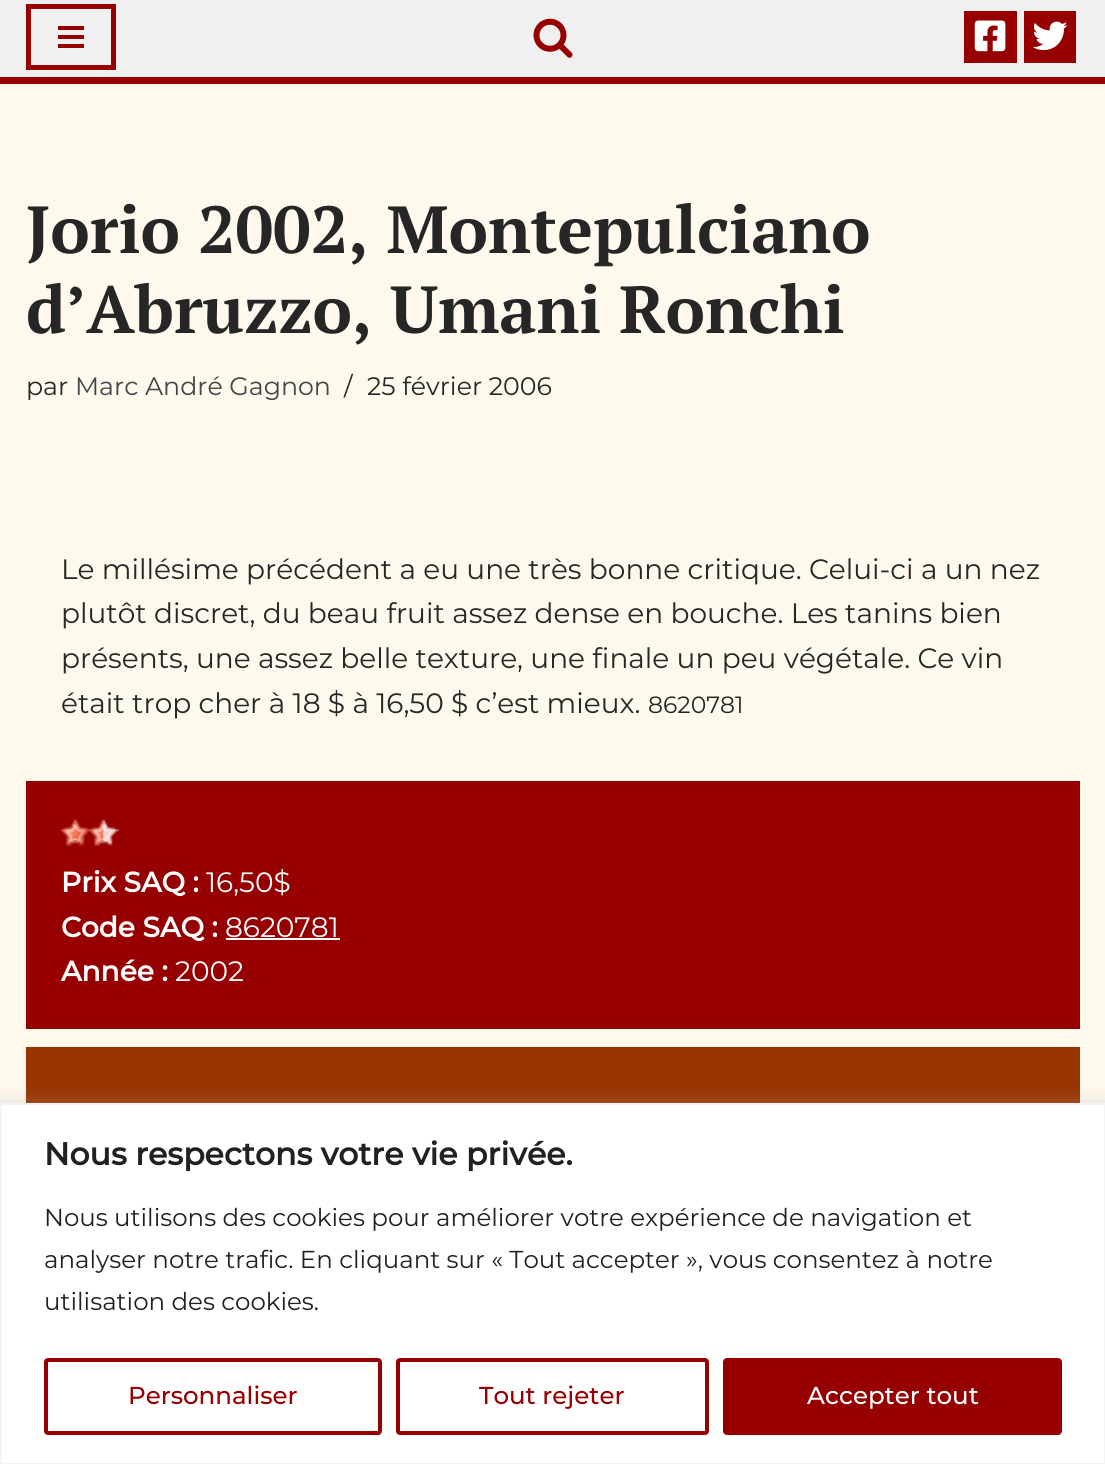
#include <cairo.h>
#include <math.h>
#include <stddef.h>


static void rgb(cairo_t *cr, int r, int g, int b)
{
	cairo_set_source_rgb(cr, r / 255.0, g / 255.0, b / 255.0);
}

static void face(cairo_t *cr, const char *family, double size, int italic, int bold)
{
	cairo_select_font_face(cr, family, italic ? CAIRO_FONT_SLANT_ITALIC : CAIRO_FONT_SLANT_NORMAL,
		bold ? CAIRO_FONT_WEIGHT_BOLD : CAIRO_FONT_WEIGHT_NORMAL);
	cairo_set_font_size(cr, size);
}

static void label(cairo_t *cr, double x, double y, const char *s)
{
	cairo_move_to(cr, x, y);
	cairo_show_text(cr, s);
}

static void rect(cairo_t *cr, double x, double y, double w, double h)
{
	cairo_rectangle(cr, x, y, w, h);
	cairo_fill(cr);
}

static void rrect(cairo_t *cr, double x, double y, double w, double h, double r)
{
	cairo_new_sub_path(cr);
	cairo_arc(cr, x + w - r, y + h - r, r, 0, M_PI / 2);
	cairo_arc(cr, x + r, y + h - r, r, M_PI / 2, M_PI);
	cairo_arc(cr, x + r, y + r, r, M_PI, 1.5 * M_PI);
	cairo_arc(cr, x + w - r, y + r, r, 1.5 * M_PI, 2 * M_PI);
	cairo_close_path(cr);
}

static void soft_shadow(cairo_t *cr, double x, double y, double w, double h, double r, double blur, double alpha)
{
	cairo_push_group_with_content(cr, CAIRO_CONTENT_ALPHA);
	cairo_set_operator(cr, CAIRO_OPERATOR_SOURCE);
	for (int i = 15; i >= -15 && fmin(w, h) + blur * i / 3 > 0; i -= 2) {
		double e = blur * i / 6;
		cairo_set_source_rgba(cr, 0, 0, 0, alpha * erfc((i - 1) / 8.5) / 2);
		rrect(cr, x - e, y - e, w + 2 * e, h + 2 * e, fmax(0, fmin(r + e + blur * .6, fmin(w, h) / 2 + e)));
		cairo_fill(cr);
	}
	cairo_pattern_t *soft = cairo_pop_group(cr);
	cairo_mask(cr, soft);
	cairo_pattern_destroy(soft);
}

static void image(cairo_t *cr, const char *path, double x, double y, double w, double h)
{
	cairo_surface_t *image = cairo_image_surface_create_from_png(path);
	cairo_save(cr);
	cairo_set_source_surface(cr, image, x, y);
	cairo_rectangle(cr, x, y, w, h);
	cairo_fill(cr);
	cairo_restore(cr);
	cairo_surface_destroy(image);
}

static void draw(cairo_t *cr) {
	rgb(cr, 255, 248, 236);
	cairo_paint(cr);
	rgb(cr, 240, 240, 240);
	rect(cr, 0, 0, 1105, 77);
	rgb(cr, 150, 0, 0);
	rect(cr, 0, 77, 1105, 7);
	cairo_rectangle(cr, 28.5, 6.5, 85, 61);
	cairo_set_line_width(cr, 5);
	cairo_stroke(cr);
	rect(cr, 58, 26, 26, 4);
	rect(cr, 58, 35, 26, 4);
	rect(cr, 58, 44, 26, 4);
	image(cr, "image0.png", 533, 18, 40, 40);
	rect(cr, 964, 11, 53, 52);
	image(cr, "image1.png", 974, 20, 32, 32);
	rect(cr, 1024, 11, 52, 52);
	image(cr, "image2.png", 1032, 21, 36, 30);
	face(cr, "PT Serif", 66.5, 0, 1);
	rgb(cr, 39, 38, 38);
	label(cr, 26, 253, "Jorio 2002, Montepulciano");
	label(cr, 26, 333, "d’Abruzzo, Umani Ronchi");
	face(cr, "Montserrat", 25.25, 0, 0);
	label(cr, 26, 395, "par");
	rgb(cr, 68, 69, 72);
	label(cr, 75, 395, "Marc André Gagnon");
	rgb(cr, 39, 38, 38);
	label(cr, 344, 395, "/");
	label(cr, 367, 395, "25 février 2006");
	face(cr, "Montserrat", 28, 0, 0);
	label(cr, 61, 579, "Le millésime précédent a eu une très bonne critique. Celui-ci a un nez");
	label(cr, 61, 623, "plutôt discret, du beau fruit assez dense en bouche. Les tanins bien");
	label(cr, 61, 668, "présents, une assez belle texture, une finale un peu végétale. Ce vin");
	label(cr, 61, 713, "était trop cher à 18 $ à 16,50 $ c’est mieux.");
	face(cr, "Montserrat", 23.5, 0, 0);
	label(cr, 648, 713, "8620781");
	rgb(cr, 150, 0, 0);
	rect(cr, 26, 781, 1054, 248);
	image(cr, "image3.png", 61, 819, 58, 28);
	face(cr, "Montserrat", 28, 0, 1);
	rgb(cr, 255, 255, 255);
	label(cr, 61, 892, "Prix SAQ :");
	face(cr, "Montserrat", 28, 0, 0);
	label(cr, 206, 892, "16,50$");
	face(cr, "Montserrat", 28, 0, 1);
	label(cr, 61, 937, "Code SAQ :");
	face(cr, "Montserrat", 28, 0, 0);
	label(cr, 225, 937, "8620781");
	rect(cr, 226, 938, 114, 2);
	face(cr, "Montserrat", 28, 0, 1);
	label(cr, 61, 981, "Année :");
	face(cr, "Montserrat", 28, 0, 0);
	label(cr, 175, 981, "2002");
	rgb(cr, 153, 51, 0);
	rect(cr, 26, 1047, 1054, 56);
	rgb(cr, 172, 171, 171);
	soft_shadow(cr, 0, 1101, 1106, 362, 0, 9, 0.3);
	rgb(cr, 255, 255, 255);
	cairo_rectangle(cr, 1, 1104, 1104, 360);
	cairo_fill_preserve(cr);
	rgb(cr, 244, 244, 244);
	cairo_set_line_width(cr, 2);
	cairo_stroke(cr);
	face(cr, "Montserrat", 31.5, 0, 1);
	rgb(cr, 33, 33, 33);
	label(cr, 44, 1165, "Nous respectons votre vie privée.");
	face(cr, "Montserrat", 24.5, 0, 0);
	label(cr, 44, 1226, "Nous utilisons des cookies pour améliorer votre expérience de navigation et");
	label(cr, 44, 1268, "analyser notre trafic. En cliquant sur « Tout accepter », vous consentez à notre");
	label(cr, 44, 1310, "utilisation des cookies.");
	rrect(cr, 46, 1360, 334, 73, 2);
	rgb(cr, 150, 0, 0);
	cairo_set_line_width(cr, 4);
	cairo_stroke(cr);
	face(cr, "Montserrat Medium", 24.5, 0, 0);
	label(cr, 128, 1404, "Personnaliser");
	rrect(cr, 398, 1360, 309, 73, 2);
	cairo_stroke(cr);
	label(cr, 479, 1404, "Tout rejeter");
	rrect(cr, 725, 1360, 335, 73, 2);
	cairo_fill_preserve(cr);
	cairo_stroke(cr);
	rgb(cr, 255, 255, 255);
	label(cr, 807, 1404, "Accepter tout");
}

int main(void) {
	cairo_surface_t *surface = cairo_image_surface_create(CAIRO_FORMAT_RGB24, 1105, 1464);
	cairo_t *cr = cairo_create(surface);
	cairo_font_options_t *options = cairo_font_options_create();
	cairo_font_options_set_hint_metrics(options, CAIRO_HINT_METRICS_OFF);
	cairo_font_options_set_hint_style(options, CAIRO_HINT_STYLE_NONE);
	cairo_set_font_options(cr, options);
	cairo_set_miter_limit(cr, 4);
	draw(cr);
	cairo_surface_write_to_png(surface, "render.png");
	cairo_font_options_destroy(options);
	cairo_destroy(cr);
	cairo_surface_destroy(surface);
	return 0;
}
